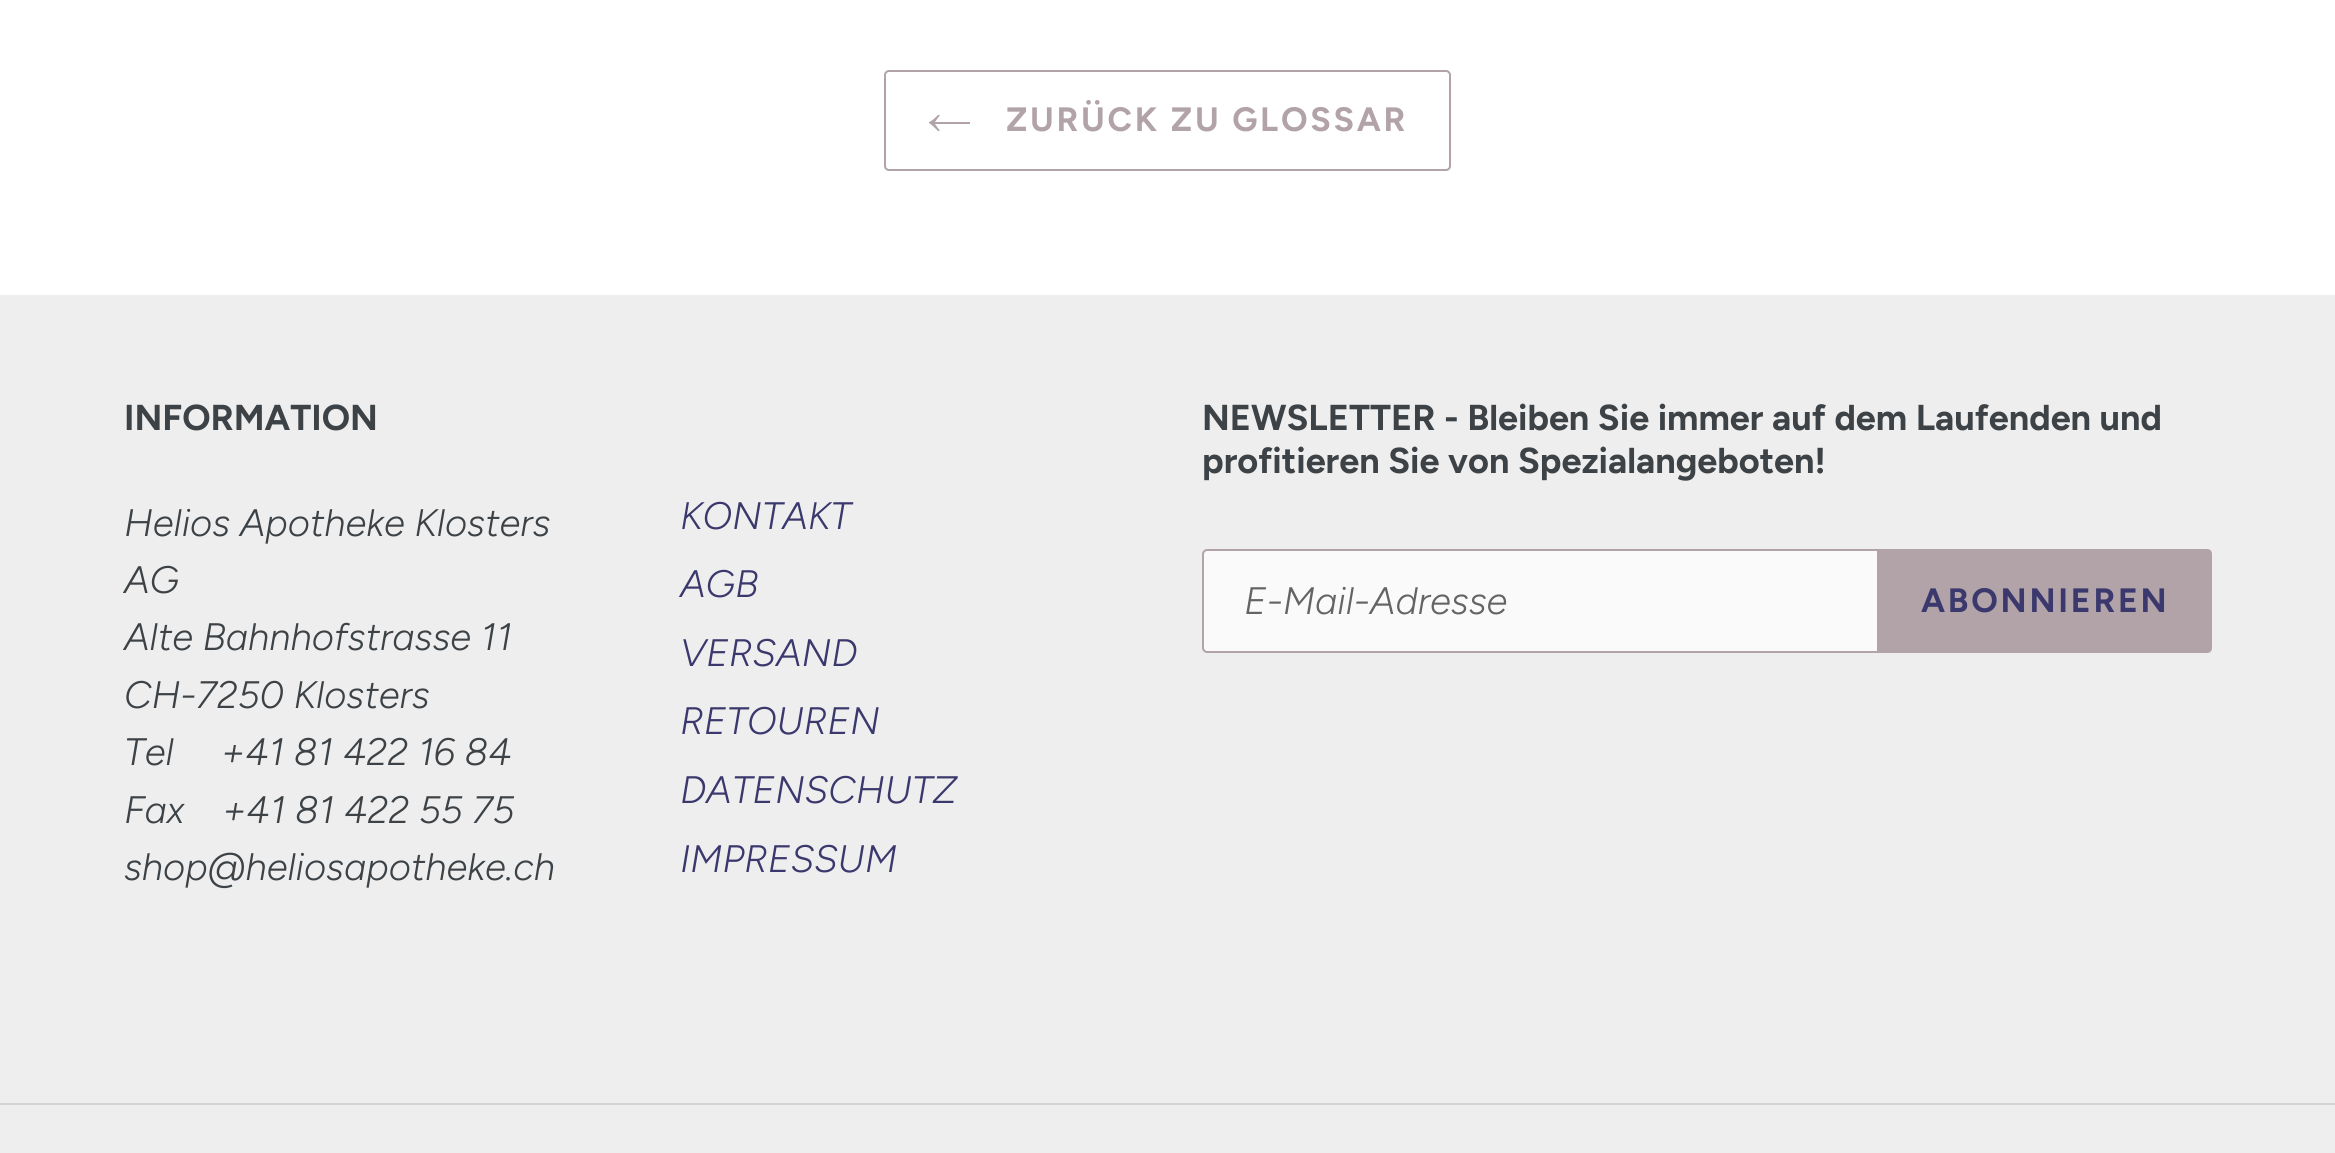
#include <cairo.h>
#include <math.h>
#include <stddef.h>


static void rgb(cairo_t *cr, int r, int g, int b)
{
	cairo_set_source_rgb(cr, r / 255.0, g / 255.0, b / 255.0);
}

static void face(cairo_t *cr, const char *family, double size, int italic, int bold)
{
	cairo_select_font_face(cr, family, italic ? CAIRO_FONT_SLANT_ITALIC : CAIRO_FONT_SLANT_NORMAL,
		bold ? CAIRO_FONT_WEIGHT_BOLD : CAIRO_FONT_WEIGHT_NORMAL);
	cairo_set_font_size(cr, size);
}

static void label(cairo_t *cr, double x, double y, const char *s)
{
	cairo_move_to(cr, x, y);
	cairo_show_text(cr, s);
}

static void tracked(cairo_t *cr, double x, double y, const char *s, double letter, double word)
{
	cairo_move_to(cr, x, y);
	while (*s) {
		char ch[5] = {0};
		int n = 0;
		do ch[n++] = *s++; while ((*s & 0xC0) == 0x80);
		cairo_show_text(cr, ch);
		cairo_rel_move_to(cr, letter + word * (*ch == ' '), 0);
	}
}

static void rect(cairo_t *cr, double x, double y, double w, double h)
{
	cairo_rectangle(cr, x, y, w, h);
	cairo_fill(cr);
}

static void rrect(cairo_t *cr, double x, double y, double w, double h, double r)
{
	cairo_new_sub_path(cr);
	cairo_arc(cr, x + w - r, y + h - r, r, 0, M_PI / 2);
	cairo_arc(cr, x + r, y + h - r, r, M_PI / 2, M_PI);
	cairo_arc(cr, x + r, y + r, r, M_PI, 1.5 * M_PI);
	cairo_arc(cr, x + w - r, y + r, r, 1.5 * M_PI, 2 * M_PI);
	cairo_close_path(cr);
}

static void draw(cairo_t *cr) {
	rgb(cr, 255, 255, 255);
	cairo_paint(cr);
	rrect(cr, 885, 71, 565, 99, 4);
	rgb(cr, 177, 163, 168);
	cairo_stroke(cr);
	cairo_set_fill_rule(cr, CAIRO_FILL_RULE_EVEN_ODD);
	cairo_new_path(cr);
	cairo_move_to(cr, 938, 131);
	cairo_curve_to(cr, 935, 128, 932, 125, 929, 123);
	cairo_line_to(cr, 929, 122);
	cairo_curve_to(cr, 932, 121, 935, 118, 938, 115);
	cairo_line_to(cr, 940, 115);
	cairo_line_to(cr, 935, 122);
	cairo_line_to(cr, 970, 122);
	cairo_line_to(cr, 970, 124);
	cairo_line_to(cr, 935, 124);
	cairo_line_to(cr, 940, 131);
	cairo_close_path(cr);
	cairo_fill(cr);
	face(cr, "Figtree", 33.75, 0, 1);
	tracked(cr, 1006, 131, "ZURÜCK ZU GLOSSAR", 2.75, 0);
	rgb(cr, 238, 238, 238);
	rect(cr, 0, 295, 2335, 858);
	face(cr, "Figtree", 36, 0, 1);
	rgb(cr, 61, 66, 70);
	label(cr, 124, 430, "INFORMATION");
	face(cr, "Figtree Light", 38.25, 1, 0);
	label(cr, 124, 536, "Helios Apotheke Klosters");
	label(cr, 124, 593, "AG");
	label(cr, 124, 650, "Alte Bahnhofstrasse 11");
	label(cr, 124, 708, "CH-7250 Klosters");
	label(cr, 124, 765, "Tel     +41 81 422 16 84");
	label(cr, 124, 823, "Fax    +41 81 422 55 75");
	label(cr, 124, 880, "shop@heliosapotheke.ch");
	rgb(cr, 59, 56, 109);
	label(cr, 680, 529, "KONTAKT");
	label(cr, 680, 597, "AGB");
	label(cr, 680, 666, "VERSAND");
	label(cr, 680, 734, "RETOUREN");
	label(cr, 680, 803, "DATENSCHUTZ");
	label(cr, 680, 872, "IMPRESSUM");
	face(cr, "Figtree", 36, 0, 1);
	rgb(cr, 61, 66, 70);
	label(cr, 1202, 430, "NEWSLETTER - Bleiben Sie immer auf dem Laufenden und");
	label(cr, 1202, 473, "profitieren Sie von Spezialangeboten!");
	rgb(cr, 250, 250, 250);
	cairo_new_path(cr);
	cairo_move_to(cr, 1207, 550);
	cairo_line_to(cr, 1878, 550);
	cairo_line_to(cr, 1878, 652);
	cairo_line_to(cr, 1207, 652);
	cairo_curve_to(cr, 1205, 652, 1203, 650, 1203, 648);
	cairo_line_to(cr, 1203, 554);
	cairo_curve_to(cr, 1203, 552, 1205, 550, 1207, 550);
	cairo_close_path(cr);
	cairo_fill_preserve(cr);
	rgb(cr, 177, 163, 168);
	cairo_stroke(cr);
	face(cr, "Figtree Light", 38.25, 1, 0);
	rgb(cr, 100, 100, 100);
	label(cr, 1244, 614, "E-Mail-Adresse");
	rgb(cr, 177, 163, 168);
	cairo_new_path(cr);
	cairo_move_to(cr, 1879, 549);
	cairo_line_to(cr, 2207, 549);
	cairo_curve_to(cr, 2210, 549, 2212, 551, 2212, 554);
	cairo_line_to(cr, 2212, 648);
	cairo_curve_to(cr, 2212, 651, 2210, 653, 2207, 653);
	cairo_line_to(cr, 1879, 653);
	cairo_close_path(cr);
	cairo_fill(cr);
	face(cr, "Figtree", 33.75, 0, 1);
	rgb(cr, 59, 56, 109);
	tracked(cr, 1921, 612, "ABONNIEREN", 2.75, 0);
	rgb(cr, 212, 212, 212);
	rect(cr, 0, 1103, 2335, 2);
}

int main(void) {
	cairo_surface_t *surface = cairo_image_surface_create(CAIRO_FORMAT_RGB24, 2335, 1153);
	cairo_t *cr = cairo_create(surface);
	cairo_font_options_t *options = cairo_font_options_create();
	cairo_font_options_set_hint_metrics(options, CAIRO_HINT_METRICS_OFF);
	cairo_font_options_set_hint_style(options, CAIRO_HINT_STYLE_NONE);
	cairo_set_font_options(cr, options);
	cairo_set_miter_limit(cr, 4);
	draw(cr);
	cairo_surface_write_to_png(surface, "render.png");
	cairo_font_options_destroy(options);
	cairo_destroy(cr);
	cairo_surface_destroy(surface);
	return 0;
}
